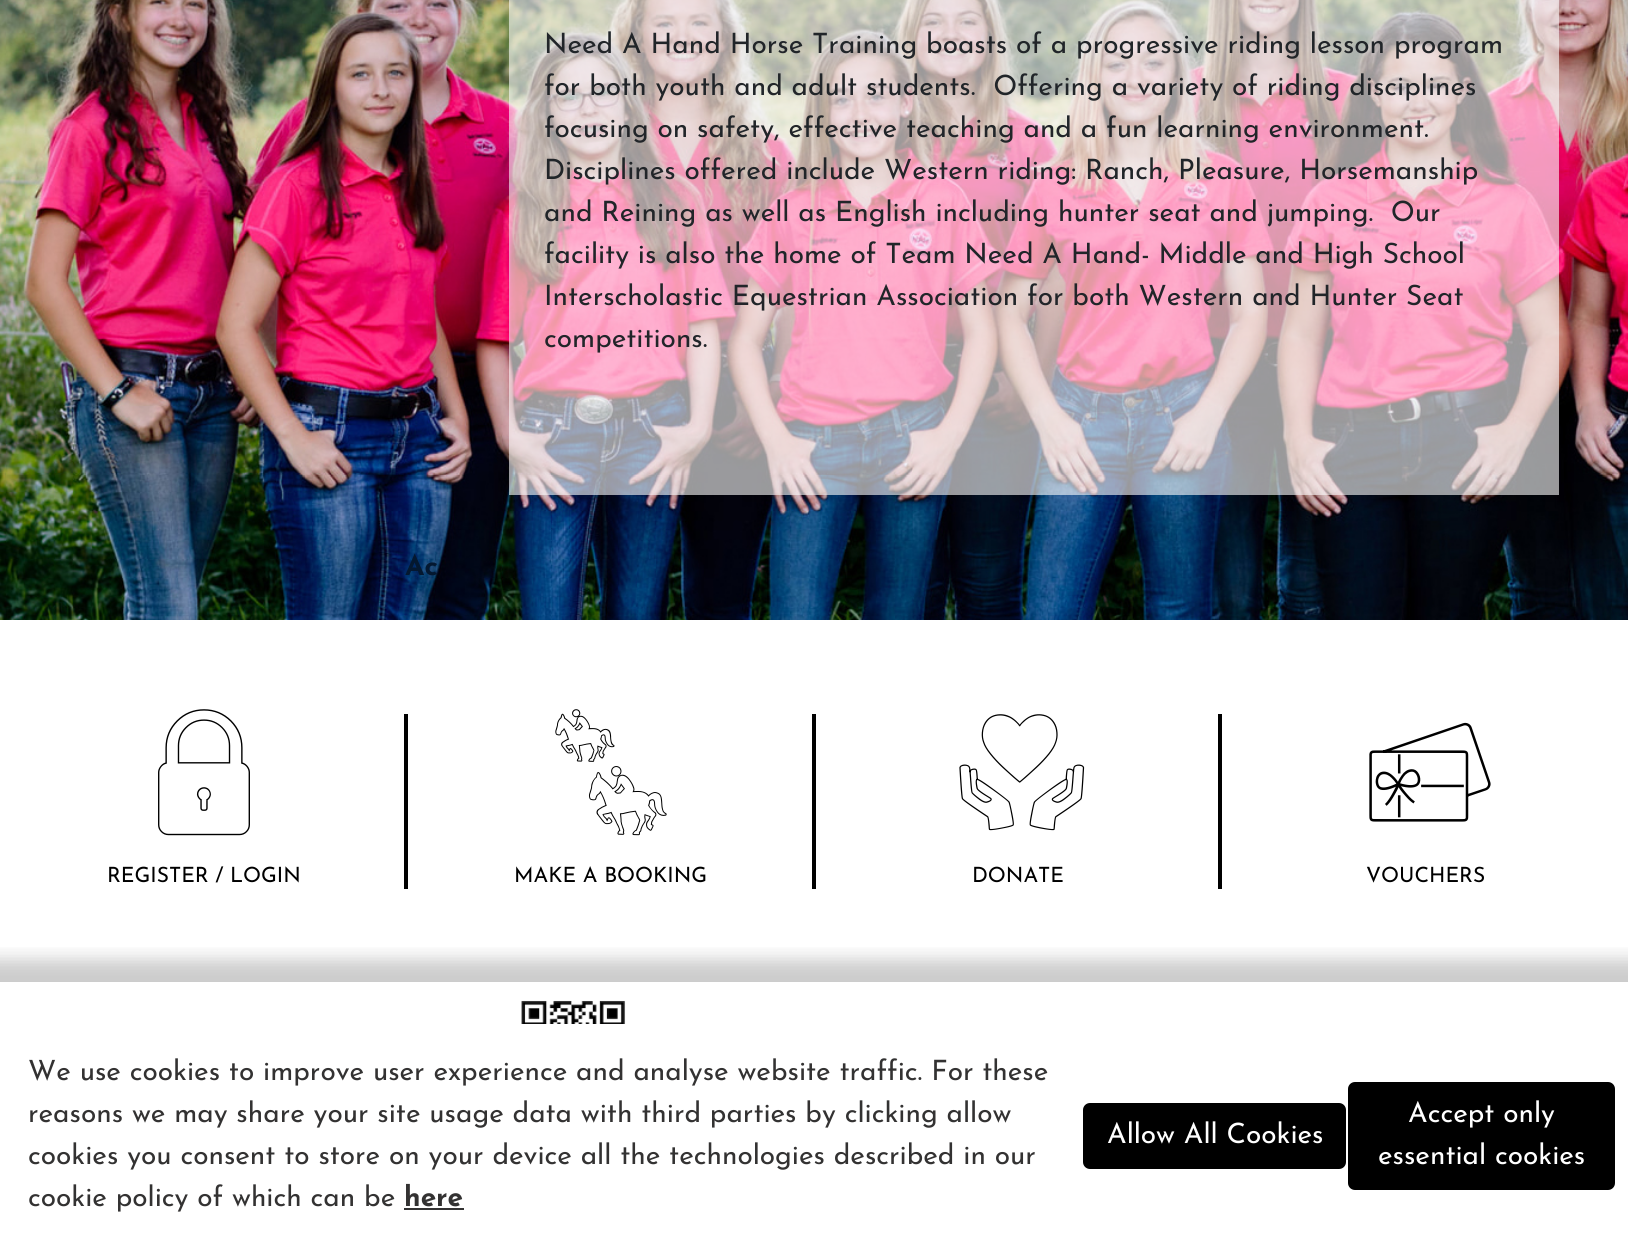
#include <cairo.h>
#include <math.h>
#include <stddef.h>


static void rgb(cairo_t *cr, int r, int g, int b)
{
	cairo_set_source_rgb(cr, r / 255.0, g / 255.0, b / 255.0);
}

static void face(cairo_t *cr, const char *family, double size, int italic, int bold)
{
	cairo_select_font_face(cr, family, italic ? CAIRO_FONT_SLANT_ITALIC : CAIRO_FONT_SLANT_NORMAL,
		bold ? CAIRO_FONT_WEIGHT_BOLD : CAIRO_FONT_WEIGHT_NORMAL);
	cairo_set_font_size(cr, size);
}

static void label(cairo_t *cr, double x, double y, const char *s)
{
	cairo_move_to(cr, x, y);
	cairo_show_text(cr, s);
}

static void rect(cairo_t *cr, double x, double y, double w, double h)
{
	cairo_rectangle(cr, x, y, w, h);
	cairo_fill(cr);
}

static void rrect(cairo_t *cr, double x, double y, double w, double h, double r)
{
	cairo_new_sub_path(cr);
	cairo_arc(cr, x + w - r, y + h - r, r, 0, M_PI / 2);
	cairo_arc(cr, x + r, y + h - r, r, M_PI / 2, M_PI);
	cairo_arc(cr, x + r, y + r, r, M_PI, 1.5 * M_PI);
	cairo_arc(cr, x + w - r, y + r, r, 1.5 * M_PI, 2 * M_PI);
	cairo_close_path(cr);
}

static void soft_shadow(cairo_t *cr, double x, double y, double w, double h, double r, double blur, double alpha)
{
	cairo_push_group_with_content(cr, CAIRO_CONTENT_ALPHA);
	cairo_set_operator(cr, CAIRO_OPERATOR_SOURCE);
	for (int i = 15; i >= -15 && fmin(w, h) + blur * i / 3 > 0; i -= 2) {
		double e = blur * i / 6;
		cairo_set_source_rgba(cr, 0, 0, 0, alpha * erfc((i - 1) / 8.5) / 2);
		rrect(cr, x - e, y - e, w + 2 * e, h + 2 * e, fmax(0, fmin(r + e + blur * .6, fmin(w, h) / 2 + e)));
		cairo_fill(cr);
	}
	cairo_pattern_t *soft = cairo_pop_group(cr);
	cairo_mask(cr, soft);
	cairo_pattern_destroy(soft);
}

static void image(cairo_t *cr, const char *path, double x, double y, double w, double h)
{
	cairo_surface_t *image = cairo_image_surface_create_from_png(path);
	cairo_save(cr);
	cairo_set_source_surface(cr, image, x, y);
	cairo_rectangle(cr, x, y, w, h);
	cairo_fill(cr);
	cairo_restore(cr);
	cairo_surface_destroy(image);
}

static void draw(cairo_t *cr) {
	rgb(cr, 255, 255, 255);
	cairo_paint(cr);
	image(cr, "image0.png", 0, 0, 1628, 620);
	cairo_set_source_rgba(cr, 1, 1, 1, 0.6);
	rect(cr, 509, 0, 1050, 495);
	face(cr, "Josefin Sans", 28, 0, 0);
	rgb(cr, 33, 37, 41);
	label(cr, 544, 53, "Need A Hand Horse Training boasts of a progressive riding lesson program");
	label(cr, 544, 95, "for both youth and adult students.  Offering a variety of riding disciplines");
	label(cr, 544, 137, "focusing on safety, effective teaching and a fun learning environment.");
	label(cr, 544, 179, "Disciplines offered include Western riding: Ranch, Pleasure, Horsemanship");
	label(cr, 544, 221, "and Reining as well as English including hunter seat and jumping.  Our");
	label(cr, 544, 263, "facility is also the home of Team Need A Hand- Middle and High School");
	label(cr, 544, 305, "Interscholastic Equestrian Association for both Western and Hunter Seat");
	label(cr, 544, 347, "competitions.");
	face(cr, "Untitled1", 126, 0, 0);
	rgb(cr, 0, 0, 0);
	label(cr, 141, 810, "A");
	face(cr, "Josefin Sans", 21, 0, 0);
	label(cr, 107, 882, "REGISTER / LOGIN");
	rect(cr, 404, 714, 4, 175);
	face(cr, "Untitled1", 126, 0, 0);
	label(cr, 548, 810, "B");
	face(cr, "Josefin Sans", 21, 0, 0);
	label(cr, 514, 882, "MAKE A BOOKING");
	rect(cr, 812, 714, 4, 175);
	face(cr, "Untitled1", 126, 0, 0);
	label(cr, 1006, 810, "D");
	face(cr, "Josefin Sans", 21, 0, 0);
	label(cr, 972, 882, "DONATE");
	rect(cr, 1218, 714, 4, 175);
	face(cr, "Untitled1", 126, 0, 0);
	label(cr, 1389, 810, "V");
	face(cr, "Josefin Sans", 21, 0, 0);
	label(cr, 1366, 882, "VOUCHERS");
	face(cr, "Josefin Sans", 28, 0, 1);
	rgb(cr, 4, 24, 48);
	label(cr, 405, 575, "Ac");
	cairo_save(cr);
	cairo_rectangle(cr, 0, 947, 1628, 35);
	cairo_clip(cr);
	rgb(cr, 0, 0, 0);
	soft_shadow(cr, -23, 959, 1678, 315, 0, 9, 0.2);
	cairo_restore(cr);
	image(cr, "image1.png", 521, 1000, 105, 24);
	face(cr, "Josefin Sans", 28, 0, 0);
	rgb(cr, 51, 50, 50);
	label(cr, 28, 1080, "We use cookies to improve user experience and analyse website traffic. For these");
	label(cr, 28, 1122, "reasons we may share your site usage data with third parties by clicking allow");
	label(cr, 28, 1164, "cookies you consent to store on your device all the technologies described in our");
	label(cr, 28, 1206, "cookie policy of which can be");
	face(cr, "Josefin Sans", 28, 0, 1);
	label(cr, 404, 1206, "here");
	rect(cr, 404, 1208, 60, 2);
	rgb(cr, 0, 0, 0);
	rrect(cr, 1084, 1104, 261, 64, 6);
	cairo_fill_preserve(cr);
	cairo_stroke(cr);
	face(cr, "Josefin Sans", 28, 0, 0);
	rgb(cr, 255, 255, 255);
	label(cr, 1107, 1143, "Allow All Cookies");
	rgb(cr, 0, 0, 0);
	rrect(cr, 1349, 1083, 265, 106, 6);
	cairo_fill_preserve(cr);
	cairo_stroke(cr);
	rgb(cr, 255, 255, 255);
	label(cr, 1408, 1122, "Accept only");
	label(cr, 1378, 1164, "essential cookies");
}

int main(void) {
	cairo_surface_t *surface = cairo_image_surface_create(CAIRO_FORMAT_RGB24, 1628, 1247);
	cairo_t *cr = cairo_create(surface);
	cairo_font_options_t *options = cairo_font_options_create();
	cairo_font_options_set_hint_metrics(options, CAIRO_HINT_METRICS_OFF);
	cairo_font_options_set_hint_style(options, CAIRO_HINT_STYLE_NONE);
	cairo_set_font_options(cr, options);
	cairo_set_miter_limit(cr, 4);
	draw(cr);
	cairo_surface_write_to_png(surface, "render.png");
	cairo_font_options_destroy(options);
	cairo_destroy(cr);
	cairo_surface_destroy(surface);
	return 0;
}
